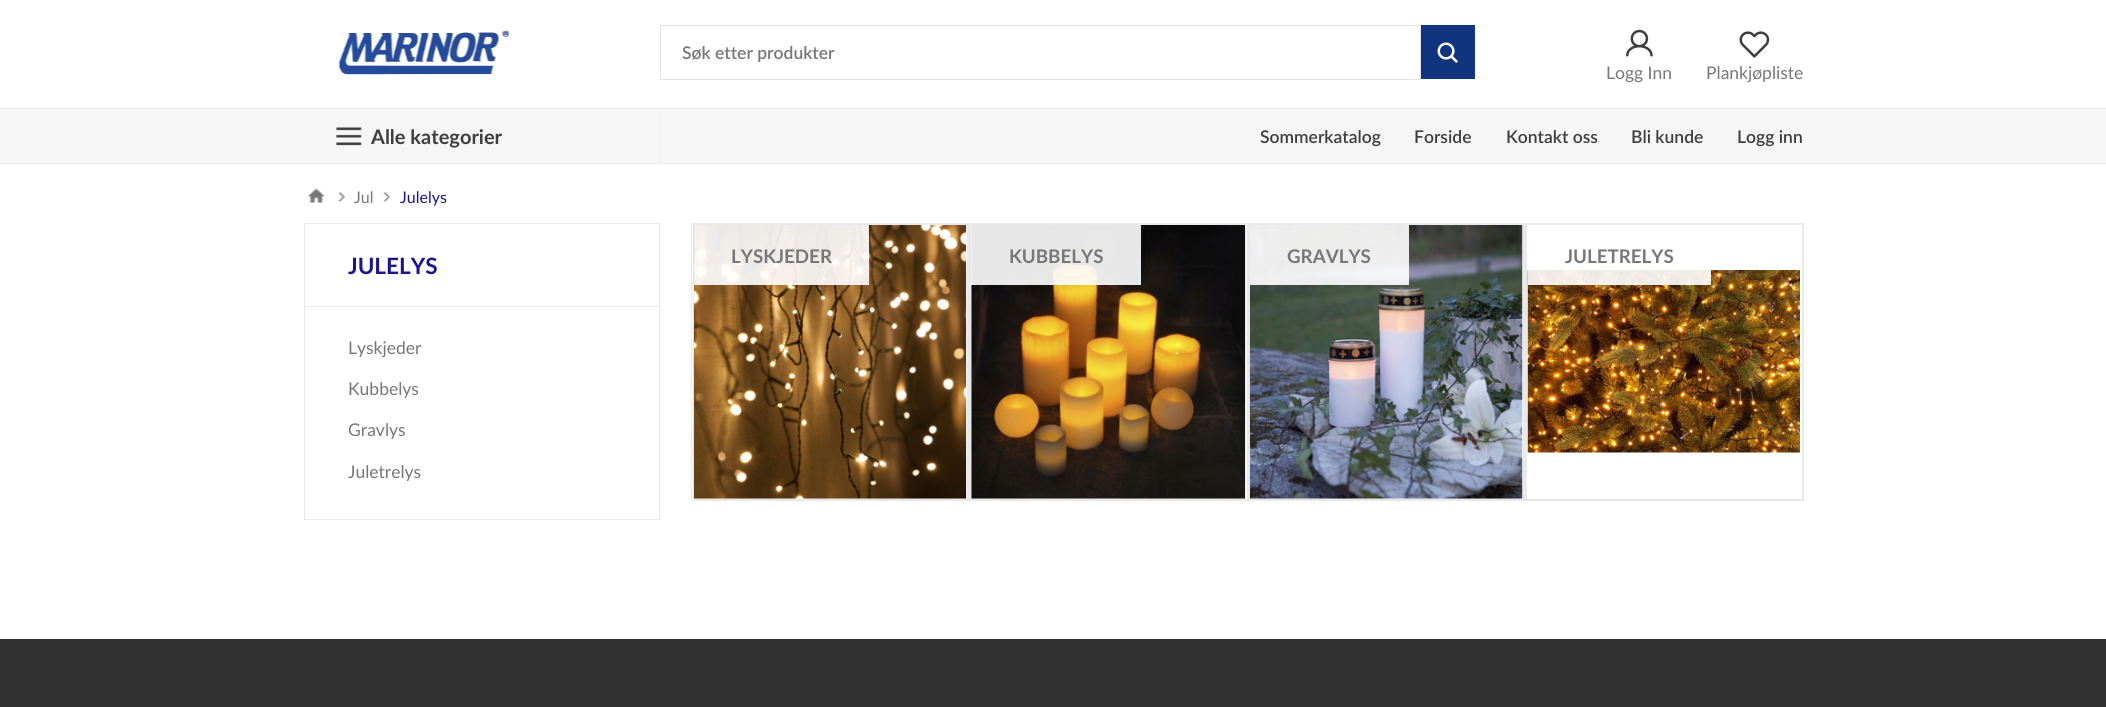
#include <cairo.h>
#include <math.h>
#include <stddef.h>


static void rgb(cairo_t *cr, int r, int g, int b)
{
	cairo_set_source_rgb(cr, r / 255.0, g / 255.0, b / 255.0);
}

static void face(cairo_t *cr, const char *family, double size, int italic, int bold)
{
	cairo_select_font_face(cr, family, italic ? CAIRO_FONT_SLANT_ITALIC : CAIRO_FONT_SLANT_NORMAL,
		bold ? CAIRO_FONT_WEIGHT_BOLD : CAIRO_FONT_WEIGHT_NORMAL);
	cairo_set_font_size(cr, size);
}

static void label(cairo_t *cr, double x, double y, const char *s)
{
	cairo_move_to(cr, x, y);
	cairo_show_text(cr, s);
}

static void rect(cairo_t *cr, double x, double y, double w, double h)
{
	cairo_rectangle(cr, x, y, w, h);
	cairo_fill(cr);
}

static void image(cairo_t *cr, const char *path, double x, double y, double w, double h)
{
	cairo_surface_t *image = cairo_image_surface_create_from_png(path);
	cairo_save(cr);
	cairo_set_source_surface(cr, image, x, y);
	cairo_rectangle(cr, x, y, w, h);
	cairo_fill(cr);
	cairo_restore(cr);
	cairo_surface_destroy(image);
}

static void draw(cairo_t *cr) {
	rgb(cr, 255, 255, 255);
	cairo_paint(cr);
	image(cr, "image0.png", 339, 30, 171, 45);
	cairo_rectangle(cr, 660.5, 25.5, 760, 54);
	rgb(cr, 227, 227, 227);
	cairo_set_line_width(cr, 1);
	cairo_stroke(cr);
	face(cr, "Lato SemiBold", 17.5, 0, 0);
	rgb(cr, 119, 119, 119);
	label(cr, 682, 59, "Søk etter produkter");
	rgb(cr, 17, 52, 126);
	rect(cr, 1421, 25, 54, 54);
	image(cr, "image1.png", 1437, 42, 21, 21);
	image(cr, "image2.png", 1626, 29, 27, 28);
	face(cr, "Lato", 17.5, 0, 0);
	rgb(cr, 119, 119, 119);
	label(cr, 1606, 79, "Logg Inn");
	image(cr, "image3.png", 1739, 31, 31, 27);
	label(cr, 1706, 79, "Plankjøpliste");
	rgb(cr, 246, 246, 246);
	rect(cr, 0, 109, 2106, 54);
	rgb(cr, 238, 238, 238);
	rect(cr, 0, 108, 2106, 1);
	rect(cr, 0, 163, 2106, 1);
	rect(cr, 659, 109, 1, 56);
	image(cr, "image4.png", 336, 127, 26, 19);
	face(cr, "Lato", 20, 0, 1);
	rgb(cr, 62, 62, 62);
	label(cr, 371, 144, "Alle kategorier");
	face(cr, "Lato SemiBold", 17.5, 0, 0);
	label(cr, 1260, 143, "Sommerkatalog");
	label(cr, 1414, 143, "Forside");
	label(cr, 1506, 143, "Kontakt oss");
	label(cr, 1631, 143, "Bli kunde");
	label(cr, 1737, 143, "Logg inn");
	image(cr, "image5.png", 307, 188, 18, 15);
	image(cr, "image6.png", 338, 192, 7, 10);
	face(cr, "Lato", 16, 0, 0);
	rgb(cr, 119, 119, 119);
	label(cr, 354, 203, "Jul");
	image(cr, "image6.png", 383, 192, 7, 10);
	rgb(cr, 27, 20, 146);
	label(cr, 400, 203, "Julelys");
	cairo_rectangle(cr, 304.5, 223.5, 355, 84);
	rgb(cr, 233, 233, 233);
	cairo_stroke(cr);
	face(cr, "Lato", 22.5, 0, 1);
	rgb(cr, 27, 20, 146);
	label(cr, 348, 274, "JULELYS");
	rgb(cr, 255, 255, 255);
	rect(cr, 305, 307, 354, 1);
	cairo_rectangle(cr, 304.5, 306.5, 355, 213);
	rgb(cr, 233, 233, 233);
	cairo_stroke(cr);
	face(cr, "Lato", 17.5, 0, 0);
	rgb(cr, 119, 119, 119);
	label(cr, 348, 354, "Lyskjeder");
	label(cr, 348, 395, "Kubbelys");
	label(cr, 348, 436, "Gravlys");
	label(cr, 348, 478, "Juletrelys");
	cairo_rectangle(cr, 691.5, 223.5, 277, 277);
	rgb(cr, 233, 233, 233);
	cairo_stroke(cr);
	cairo_rectangle(cr, 693.5, 224.5, 274, 275);
	cairo_stroke(cr);
	image(cr, "image7.png", 693, 225, 274, 274);
	cairo_set_source_rgba(cr, 1, 1, 1, 0.9);
	rect(cr, 694, 225, 175, 60);
	face(cr, "Lato", 18.75, 0, 1);
	rgb(cr, 119, 119, 119);
	label(cr, 731, 263, "LYSKJEDER");
	cairo_rectangle(cr, 969.5, 223.5, 278, 277);
	rgb(cr, 233, 233, 233);
	cairo_stroke(cr);
	cairo_rectangle(cr, 970.5, 224.5, 275, 275);
	cairo_stroke(cr);
	image(cr, "image8.png", 971, 225, 274, 274);
	cairo_set_source_rgba(cr, 1, 1, 1, 0.9);
	rect(cr, 971, 225, 170, 60);
	rgb(cr, 119, 119, 119);
	label(cr, 1009, 263, "KUBBELYS");
	cairo_rectangle(cr, 1248.5, 223.5, 276, 277);
	rgb(cr, 233, 233, 233);
	cairo_stroke(cr);
	cairo_rectangle(cr, 1249.5, 224.5, 274, 275);
	cairo_stroke(cr);
	image(cr, "image9.png", 1250, 225, 273, 274);
	cairo_set_source_rgba(cr, 1, 1, 1, 0.9);
	rect(cr, 1250, 225, 159, 60);
	rgb(cr, 119, 119, 119);
	label(cr, 1287, 263, "GRAVLYS");
	cairo_rectangle(cr, 1525.5, 223.5, 278, 277);
	rgb(cr, 233, 233, 233);
	cairo_stroke(cr);
	cairo_rectangle(cr, 1526.5, 224.5, 276, 275);
	cairo_stroke(cr);
	image(cr, "image10.png", 1527, 270, 273, 183);
	cairo_set_source_rgba(cr, 1, 1, 1, 0.9);
	rect(cr, 1528, 270, 183, 15);
	rgb(cr, 119, 119, 119);
	label(cr, 1565, 263, "JULETRELYS");
	rgb(cr, 50, 50, 50);
	rect(cr, 0, 639, 2106, 68);
}

int main(void) {
	cairo_surface_t *surface = cairo_image_surface_create(CAIRO_FORMAT_RGB24, 2106, 707);
	cairo_t *cr = cairo_create(surface);
	cairo_font_options_t *options = cairo_font_options_create();
	cairo_font_options_set_hint_metrics(options, CAIRO_HINT_METRICS_OFF);
	cairo_font_options_set_hint_style(options, CAIRO_HINT_STYLE_NONE);
	cairo_set_font_options(cr, options);
	cairo_set_miter_limit(cr, 4);
	draw(cr);
	cairo_surface_write_to_png(surface, "render.png");
	cairo_font_options_destroy(options);
	cairo_destroy(cr);
	cairo_surface_destroy(surface);
	return 0;
}
